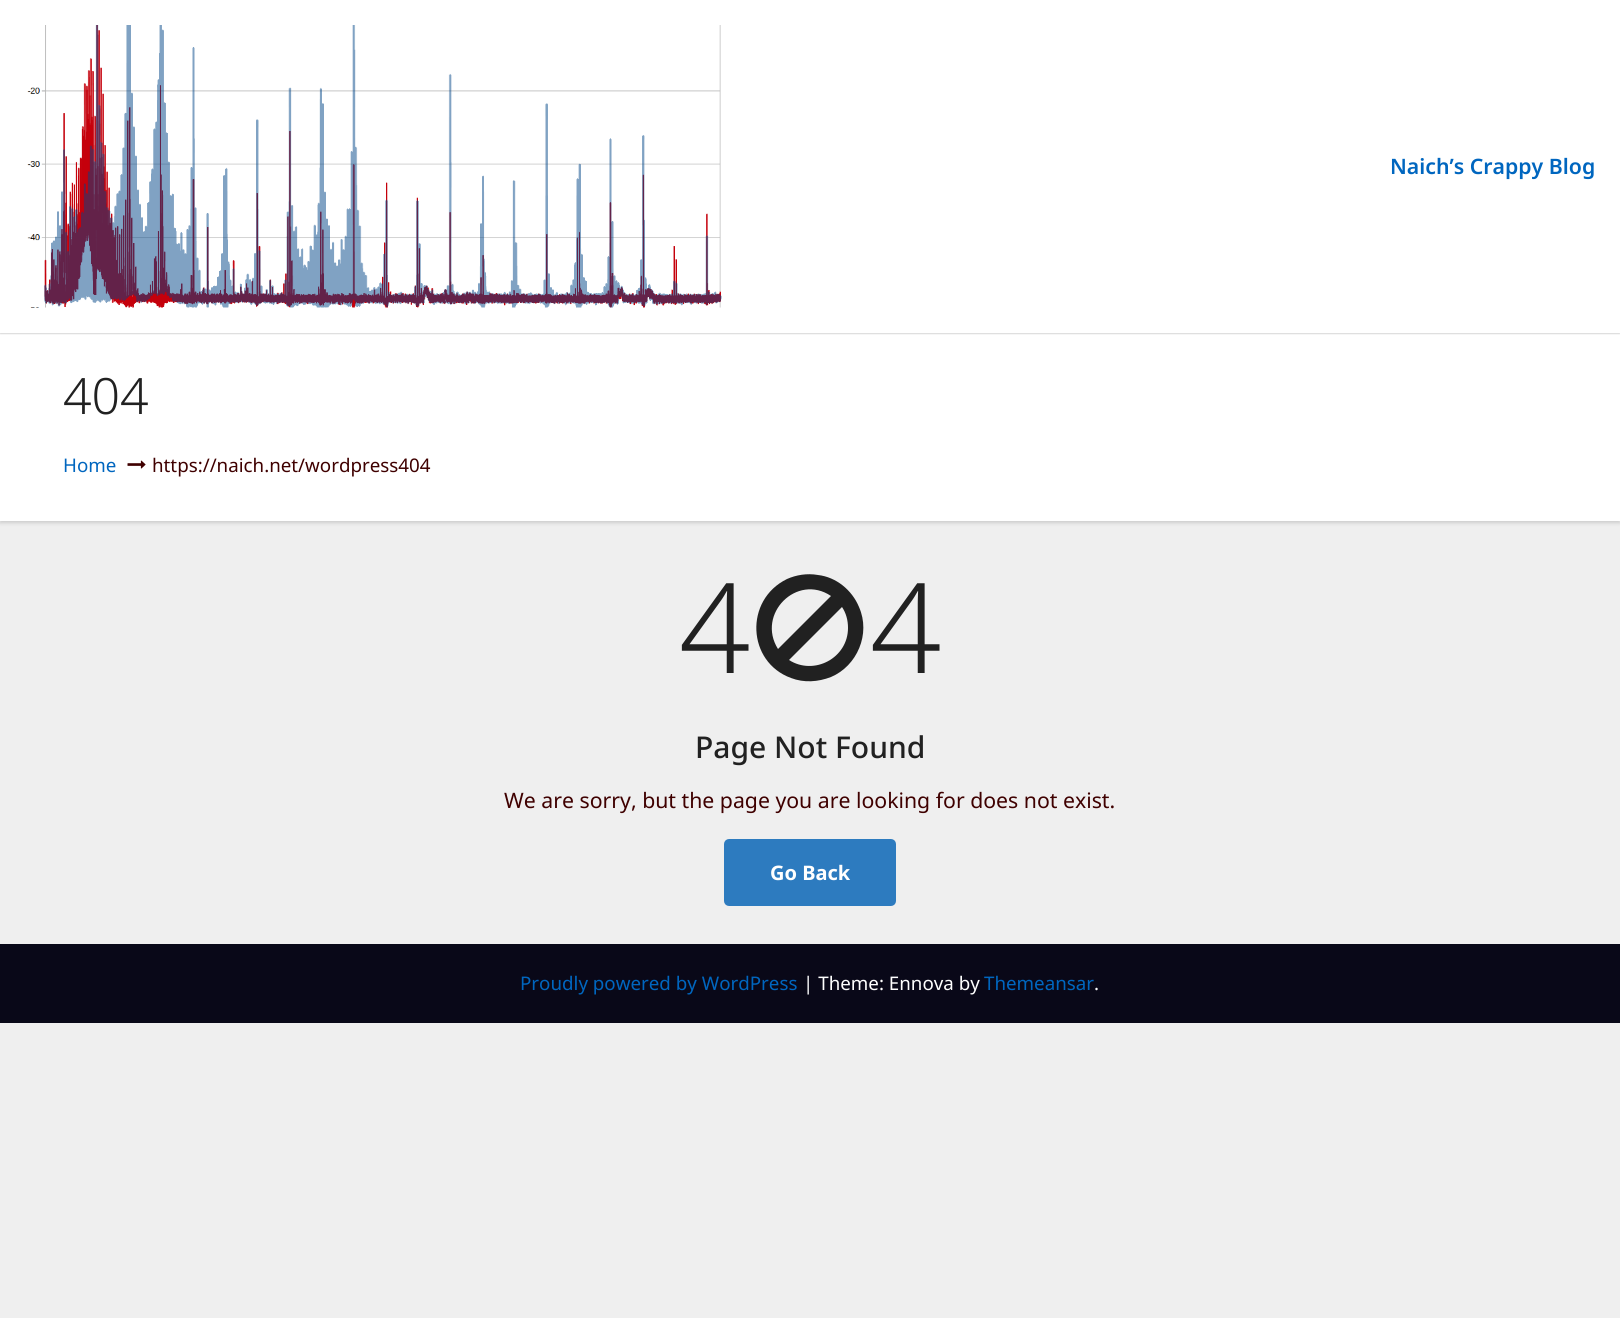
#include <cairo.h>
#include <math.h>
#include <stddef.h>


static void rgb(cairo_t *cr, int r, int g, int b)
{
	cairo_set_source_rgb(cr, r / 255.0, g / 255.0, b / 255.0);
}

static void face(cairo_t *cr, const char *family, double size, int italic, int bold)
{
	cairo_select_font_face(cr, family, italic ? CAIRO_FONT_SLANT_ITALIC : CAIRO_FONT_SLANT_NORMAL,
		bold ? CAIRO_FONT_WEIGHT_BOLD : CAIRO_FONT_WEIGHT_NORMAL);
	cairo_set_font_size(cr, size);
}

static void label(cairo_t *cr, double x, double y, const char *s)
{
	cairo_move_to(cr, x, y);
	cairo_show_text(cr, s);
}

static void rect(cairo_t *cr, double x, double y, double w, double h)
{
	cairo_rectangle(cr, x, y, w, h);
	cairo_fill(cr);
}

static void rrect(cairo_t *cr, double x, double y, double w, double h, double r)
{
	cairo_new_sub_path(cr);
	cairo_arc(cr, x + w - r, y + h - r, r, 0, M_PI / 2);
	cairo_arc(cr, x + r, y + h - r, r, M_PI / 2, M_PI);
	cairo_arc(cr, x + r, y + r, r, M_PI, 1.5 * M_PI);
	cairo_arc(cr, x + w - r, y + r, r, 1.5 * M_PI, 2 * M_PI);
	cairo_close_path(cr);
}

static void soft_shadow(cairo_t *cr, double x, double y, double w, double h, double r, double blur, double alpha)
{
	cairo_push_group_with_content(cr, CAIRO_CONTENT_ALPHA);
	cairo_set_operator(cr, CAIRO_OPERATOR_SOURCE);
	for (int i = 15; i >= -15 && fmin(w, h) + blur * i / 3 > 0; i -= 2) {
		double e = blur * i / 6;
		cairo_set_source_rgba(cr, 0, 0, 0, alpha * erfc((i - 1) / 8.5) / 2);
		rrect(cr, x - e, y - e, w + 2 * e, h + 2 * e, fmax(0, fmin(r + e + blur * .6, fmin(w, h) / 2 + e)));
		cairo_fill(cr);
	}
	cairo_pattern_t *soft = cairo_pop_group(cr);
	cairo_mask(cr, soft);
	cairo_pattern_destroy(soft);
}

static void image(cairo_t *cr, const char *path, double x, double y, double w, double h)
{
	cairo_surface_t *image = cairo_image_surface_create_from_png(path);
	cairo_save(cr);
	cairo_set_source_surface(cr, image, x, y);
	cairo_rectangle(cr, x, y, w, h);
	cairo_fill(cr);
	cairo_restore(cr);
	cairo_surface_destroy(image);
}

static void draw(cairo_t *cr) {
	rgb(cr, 239, 239, 239);
	cairo_paint(cr);
	rgb(cr, 0, 0, 0);
	soft_shadow(cr, 0, 334, 1620, 189, 0, 2, 0.15);
	rgb(cr, 255, 255, 255);
	rect(cr, 0, 333, 1620, 188);
	rgb(cr, 0, 0, 0);
	soft_shadow(cr, 0, 1, 1620, 333, 0, 0.5, 0.15);
	rgb(cr, 255, 255, 255);
	rect(cr, 0, 0, 1620, 333);
	image(cr, "image0.png", 27, 25, 695, 283);
	face(cr, "Noto Sans SemiBold", 21.25, 0, 0);
	rgb(cr, 0, 102, 191);
	label(cr, 1390, 174, "Naich’s Crappy Blog");
	face(cr, "Noto Sans Light", 50, 0, 0);
	rgb(cr, 33, 33, 33);
	label(cr, 63, 414, "404");
	face(cr, "Noto Sans", 18.75, 0, 0);
	rgb(cr, 0, 102, 191);
	label(cr, 63, 472, "Home");
	image(cr, "image1.png", 127, 460, 19, 9);
	rgb(cr, 63, 0, 0);
	label(cr, 152, 472, "https://naich.net/wordpress404");
	face(cr, "Noto Sans Light", 125, 0, 0);
	rgb(cr, 33, 33, 33);
	label(cr, 679, 673, "4");
	cairo_new_path(cr);
	cairo_move_to(cr, 848, 628);
	cairo_curve_to(cr, 848, 620, 846, 613, 842, 607);
	cairo_line_to(cr, 789, 660);
	cairo_curve_to(cr, 814, 676, 848, 658, 848, 628);
	cairo_close_path(cr);
	cairo_move_to(cr, 778, 649);
	cairo_line_to(cr, 831, 596);
	cairo_curve_to(cr, 797, 573, 756, 614, 778, 649);
	cairo_close_path(cr);
	cairo_move_to(cr, 859, 607);
	cairo_curve_to(cr, 871, 634, 857, 666, 831, 677);
	cairo_curve_to(cr, 818, 682, 804, 683, 791, 678);
	cairo_curve_to(cr, 747, 662, 744, 600, 787, 579);
	cairo_curve_to(cr, 796, 575, 807, 573, 818, 575);
	cairo_curve_to(cr, 836, 577, 852, 590, 859, 607);
	cairo_close_path(cr);
	cairo_fill(cr);
	label(cr, 870, 673, "4");
	face(cr, "Noto Sans Medium", 30, 0, 0);
	label(cr, 695, 758, "Page Not Found");
	face(cr, "Noto Sans", 21.25, 0, 0);
	rgb(cr, 63, 0, 0);
	label(cr, 504, 808, "We are sorry, but the page you are looking for does not exist.");
	rgb(cr, 45, 123, 191);
	rrect(cr, 725.5, 840.5, 169, 64, 3.5);
	cairo_fill_preserve(cr);
	cairo_set_line_width(cr, 3);
	cairo_stroke(cr);
	face(cr, "Noto Sans", 20, 0, 1);
	rgb(cr, 255, 255, 255);
	label(cr, 770, 880, "Go Back");
	rgb(cr, 9, 8, 24);
	rect(cr, 0, 944, 1620, 79);
	face(cr, "Noto Sans", 18.75, 0, 0);
	rgb(cr, 0, 102, 191);
	label(cr, 520, 990, "Proudly powered by WordPress");
	rgb(cr, 255, 255, 255);
	label(cr, 803, 990, "| Theme: Ennova by");
	rgb(cr, 0, 102, 191);
	label(cr, 984, 990, "Themeansar");
	rgb(cr, 255, 255, 255);
	label(cr, 1094, 990, ".");
}

int main(void) {
	cairo_surface_t *surface = cairo_image_surface_create(CAIRO_FORMAT_RGB24, 1620, 1318);
	cairo_t *cr = cairo_create(surface);
	cairo_font_options_t *options = cairo_font_options_create();
	cairo_font_options_set_hint_metrics(options, CAIRO_HINT_METRICS_OFF);
	cairo_font_options_set_hint_style(options, CAIRO_HINT_STYLE_NONE);
	cairo_set_font_options(cr, options);
	cairo_set_miter_limit(cr, 4);
	draw(cr);
	cairo_surface_write_to_png(surface, "render.png");
	cairo_font_options_destroy(options);
	cairo_destroy(cr);
	cairo_surface_destroy(surface);
	return 0;
}
